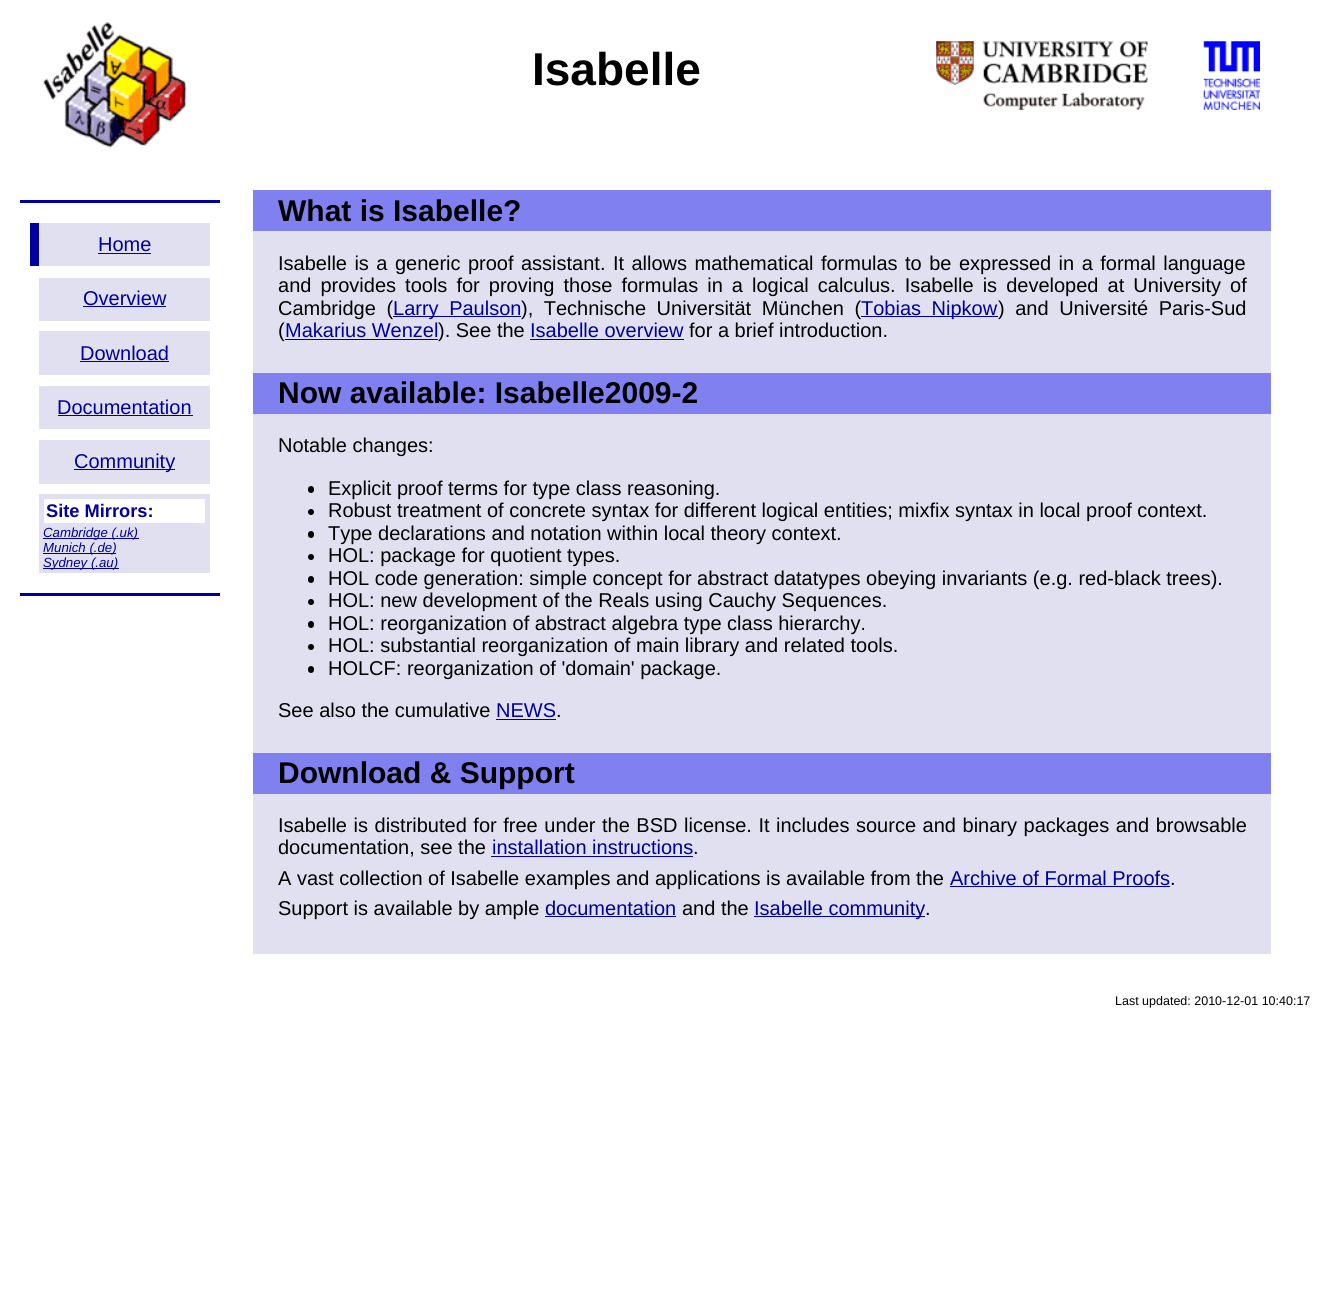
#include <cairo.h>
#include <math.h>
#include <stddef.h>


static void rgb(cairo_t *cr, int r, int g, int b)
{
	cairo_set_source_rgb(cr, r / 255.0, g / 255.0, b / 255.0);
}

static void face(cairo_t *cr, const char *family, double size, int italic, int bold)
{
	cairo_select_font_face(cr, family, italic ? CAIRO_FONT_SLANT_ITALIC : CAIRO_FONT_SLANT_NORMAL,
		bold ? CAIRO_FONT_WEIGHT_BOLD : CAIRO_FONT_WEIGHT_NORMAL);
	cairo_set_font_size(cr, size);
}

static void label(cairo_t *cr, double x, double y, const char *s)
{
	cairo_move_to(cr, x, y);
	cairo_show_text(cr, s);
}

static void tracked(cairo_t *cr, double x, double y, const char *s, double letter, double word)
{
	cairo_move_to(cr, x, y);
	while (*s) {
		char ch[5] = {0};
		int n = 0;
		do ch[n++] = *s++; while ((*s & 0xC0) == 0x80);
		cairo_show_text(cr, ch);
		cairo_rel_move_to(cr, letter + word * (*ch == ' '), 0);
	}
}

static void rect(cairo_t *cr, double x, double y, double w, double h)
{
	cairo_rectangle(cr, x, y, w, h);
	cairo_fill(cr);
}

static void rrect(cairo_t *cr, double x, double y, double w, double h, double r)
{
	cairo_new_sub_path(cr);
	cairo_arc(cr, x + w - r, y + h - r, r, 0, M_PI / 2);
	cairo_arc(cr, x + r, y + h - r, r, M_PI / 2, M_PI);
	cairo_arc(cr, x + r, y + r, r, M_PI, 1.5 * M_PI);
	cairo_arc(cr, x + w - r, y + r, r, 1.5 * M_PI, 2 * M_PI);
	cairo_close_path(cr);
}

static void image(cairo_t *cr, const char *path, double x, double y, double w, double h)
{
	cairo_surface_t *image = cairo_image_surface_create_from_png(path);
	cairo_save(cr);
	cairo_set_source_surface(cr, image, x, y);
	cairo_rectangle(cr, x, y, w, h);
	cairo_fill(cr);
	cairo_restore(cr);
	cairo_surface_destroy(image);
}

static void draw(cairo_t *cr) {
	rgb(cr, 255, 255, 255);
	cairo_paint(cr);
	image(cr, "image0.png", 43, 22, 144, 126);
	face(cr, "Liberation Sans", 46, 0, 1);
	rgb(cr, 0, 0, 0);
	label(cr, 532, 85, "Isabelle");
	image(cr, "image1.png", 936, 41, 212, 69);
	image(cr, "image2.png", 1203, 41, 57, 69);
	rgb(cr, 0, 0, 160);
	rect(cr, 20, 200, 200, 3);
	rect(cr, 20, 593, 200, 3);
	rgb(cr, 224, 224, 240);
	rect(cr, 39, 223, 171, 43);
	rgb(cr, 0, 0, 160);
	rect(cr, 30, 223, 9, 43);
	face(cr, "Liberation Sans", 20, 0, 0);
	label(cr, 98, 251, "Home");
	rect(cr, 98, 253, 53, 1);
	rgb(cr, 224, 224, 240);
	rect(cr, 39, 278, 171, 43);
	rgb(cr, 0, 0, 160);
	label(cr, 83, 305, "Overview");
	rect(cr, 83, 306, 83, 1);
	rgb(cr, 224, 224, 240);
	rect(cr, 39, 331, 171, 44);
	rgb(cr, 0, 0, 160);
	label(cr, 80, 360, "Download");
	rect(cr, 80, 361, 89, 1);
	rgb(cr, 224, 224, 240);
	rect(cr, 39, 386, 171, 43);
	rgb(cr, 0, 0, 160);
	label(cr, 57, 414, "Documentation");
	rect(cr, 58, 415, 135, 1);
	rgb(cr, 224, 224, 240);
	rect(cr, 39, 440, 171, 44);
	rgb(cr, 0, 0, 160);
	rect(cr, 74, 469, 101, 1);
	label(cr, 74, 468, "Community");
	rgb(cr, 224, 224, 240);
	rect(cr, 39, 494, 171, 79);
	rgb(cr, 255, 255, 255);
	rect(cr, 44, 499, 161, 24);
	face(cr, "Liberation Sans", 18.25, 0, 1);
	rgb(cr, 0, 0, 160);
	label(cr, 46, 517, "Site Mirrors:");
	rect(cr, 43, 538, 96, 1);
	face(cr, "Liberation Sans", 13.25, 1, 0);
	label(cr, 43, 537, "Cambridge (.uk)");
	rect(cr, 43, 553, 73, 1);
	label(cr, 43, 552, "Munich (.de)");
	rect(cr, 43, 568, 76, 1);
	label(cr, 43, 567, "Sydney (.au)");
	rgb(cr, 224, 224, 240);
	rect(cr, 253, 231, 1018, 723);
	rgb(cr, 128, 128, 240);
	rect(cr, 253, 190, 1018, 41);
	face(cr, "Liberation Sans", 30, 0, 1);
	rgb(cr, 0, 0, 0);
	label(cr, 278, 221, "What is Isabelle?");
	face(cr, "Liberation Sans", 20, 0, 0);
	tracked(cr, 278, 270, "Isabelle is a generic proof assistant. It allows mathematical formulas to be expressed in a formal language", 0, 1.9);
	tracked(cr, 278, 292, "and provides tools for proving those formulas in a logical calculus. Isabelle is developed at University of", 0, 3.5);
	tracked(cr, 278, 315, "Cambridge (", 0, 5);
	rgb(cr, 0, 0, 160);
	rect(cr, 393, 316, 128, 1);
	tracked(cr, 393, 315, "Larry Paulson", 0, 5);
	rgb(cr, 0, 0, 0);
	tracked(cr, 521, 315, "), Technische Universität München (", 0, 5);
	rgb(cr, 0, 0, 160);
	rect(cr, 861, 316, 137, 1);
	tracked(cr, 861, 315, "Tobias Nipkow", 0, 5);
	rgb(cr, 0, 0, 0);
	tracked(cr, 998, 315, ") and Université Paris-Sud", 0, 5);
	label(cr, 278, 337, "(");
	rgb(cr, 0, 0, 160);
	label(cr, 285, 337, "Makarius Wenzel");
	rect(cr, 285, 339, 153, 1);
	rgb(cr, 0, 0, 0);
	label(cr, 438, 337, "). See the");
	rgb(cr, 0, 0, 160);
	label(cr, 530, 337, "Isabelle overview");
	rect(cr, 530, 339, 154, 1);
	rgb(cr, 0, 0, 0);
	label(cr, 689, 337, "for a brief introduction.");
	rgb(cr, 128, 128, 240);
	rect(cr, 253, 373, 1018, 41);
	face(cr, "Liberation Sans", 30, 0, 1);
	rgb(cr, 0, 0, 0);
	label(cr, 278, 403, "Now available: Isabelle2009-2");
	face(cr, "Liberation Sans", 20, 0, 0);
	label(cr, 278, 452, "Notable changes:");
	rrect(cr, 308, 486, 6, 7, 3);
	cairo_fill(cr);
	label(cr, 328, 495, "Explicit proof terms for type class reasoning.");
	cairo_new_path(cr);
	cairo_arc(cr, 311, 512, 3, 0, 2 * M_PI);
	cairo_fill(cr);
	label(cr, 328, 517, "Robust treatment of concrete syntax for different logical entities; mixfix syntax in local proof context.");
	rrect(cr, 308, 531, 6, 7, 3);
	cairo_fill(cr);
	label(cr, 328, 540, "Type declarations and notation within local theory context.");
	cairo_new_path(cr);
	cairo_arc(cr, 311, 557, 3, 0, 2 * M_PI);
	cairo_fill(cr);
	label(cr, 328, 562, "HOL: package for quotient types.");
	rrect(cr, 308, 576, 6, 7, 3);
	cairo_fill(cr);
	label(cr, 328, 585, "HOL code generation: simple concept for abstract datatypes obeying invariants (e.g. red-black trees).");
	cairo_new_path(cr);
	cairo_arc(cr, 311, 602, 3, 0, 2 * M_PI);
	cairo_fill(cr);
	label(cr, 328, 607, "HOL: new development of the Reals using Cauchy Sequences.");
	rrect(cr, 308, 621, 6, 7, 3);
	cairo_fill(cr);
	label(cr, 328, 630, "HOL: reorganization of abstract algebra type class hierarchy.");
	cairo_new_path(cr);
	cairo_arc(cr, 311, 647, 3, 0, 2 * M_PI);
	cairo_fill(cr);
	label(cr, 328, 652, "HOL: substantial reorganization of main library and related tools.");
	rrect(cr, 308, 666, 6, 7, 3);
	cairo_fill(cr);
	label(cr, 328, 675, "HOLCF: reorganization of 'domain' package.");
	label(cr, 278, 717, "See also the cumulative");
	rgb(cr, 0, 0, 160);
	label(cr, 496, 717, "NEWS");
	rect(cr, 496, 719, 60, 1);
	rgb(cr, 0, 0, 0);
	label(cr, 556, 717, ".");
	rgb(cr, 128, 128, 240);
	rect(cr, 253, 753, 1018, 41);
	face(cr, "Liberation Sans", 30, 0, 1);
	rgb(cr, 0, 0, 0);
	label(cr, 278, 783, "Download & Support");
	face(cr, "Liberation Sans", 20, 0, 0);
	tracked(cr, 278, 832, "Isabelle is distributed for free under the BSD license. It includes source and binary packages and browsable", 0, 1);
	label(cr, 278, 854, "documentation, see the");
	rgb(cr, 0, 0, 160);
	label(cr, 492, 854, "installation instructions");
	rect(cr, 491, 856, 202, 1);
	rgb(cr, 0, 0, 0);
	label(cr, 693, 854, ".");
	label(cr, 278, 885, "A vast collection of Isabelle examples and applications is available from the");
	rgb(cr, 0, 0, 160);
	label(cr, 950, 885, "Archive of Formal Proofs");
	rect(cr, 950, 886, 220, 1);
	rgb(cr, 0, 0, 0);
	label(cr, 1170, 885, ".");
	label(cr, 278, 915, "Support is available by ample");
	rgb(cr, 0, 0, 160);
	label(cr, 545, 915, "documentation");
	rect(cr, 545, 916, 131, 1);
	rgb(cr, 0, 0, 0);
	label(cr, 682, 915, "and the");
	rgb(cr, 0, 0, 160);
	rect(cr, 754, 916, 171, 1);
	label(cr, 754, 915, "Isabelle community");
	rgb(cr, 0, 0, 0);
	label(cr, 925, 915, ".");
	face(cr, "Liberation Sans", 12.5, 0, 0);
	label(cr, 1115, 1005, "Last updated: 2010-12-01 10:40:17");
}

int main(void) {
	cairo_surface_t *surface = cairo_image_surface_create(CAIRO_FORMAT_RGB24, 1320, 1308);
	cairo_t *cr = cairo_create(surface);
	cairo_font_options_t *options = cairo_font_options_create();
	cairo_font_options_set_hint_metrics(options, CAIRO_HINT_METRICS_OFF);
	cairo_font_options_set_hint_style(options, CAIRO_HINT_STYLE_NONE);
	cairo_set_font_options(cr, options);
	cairo_set_miter_limit(cr, 4);
	draw(cr);
	cairo_surface_write_to_png(surface, "render.png");
	cairo_font_options_destroy(options);
	cairo_destroy(cr);
	cairo_surface_destroy(surface);
	return 0;
}
